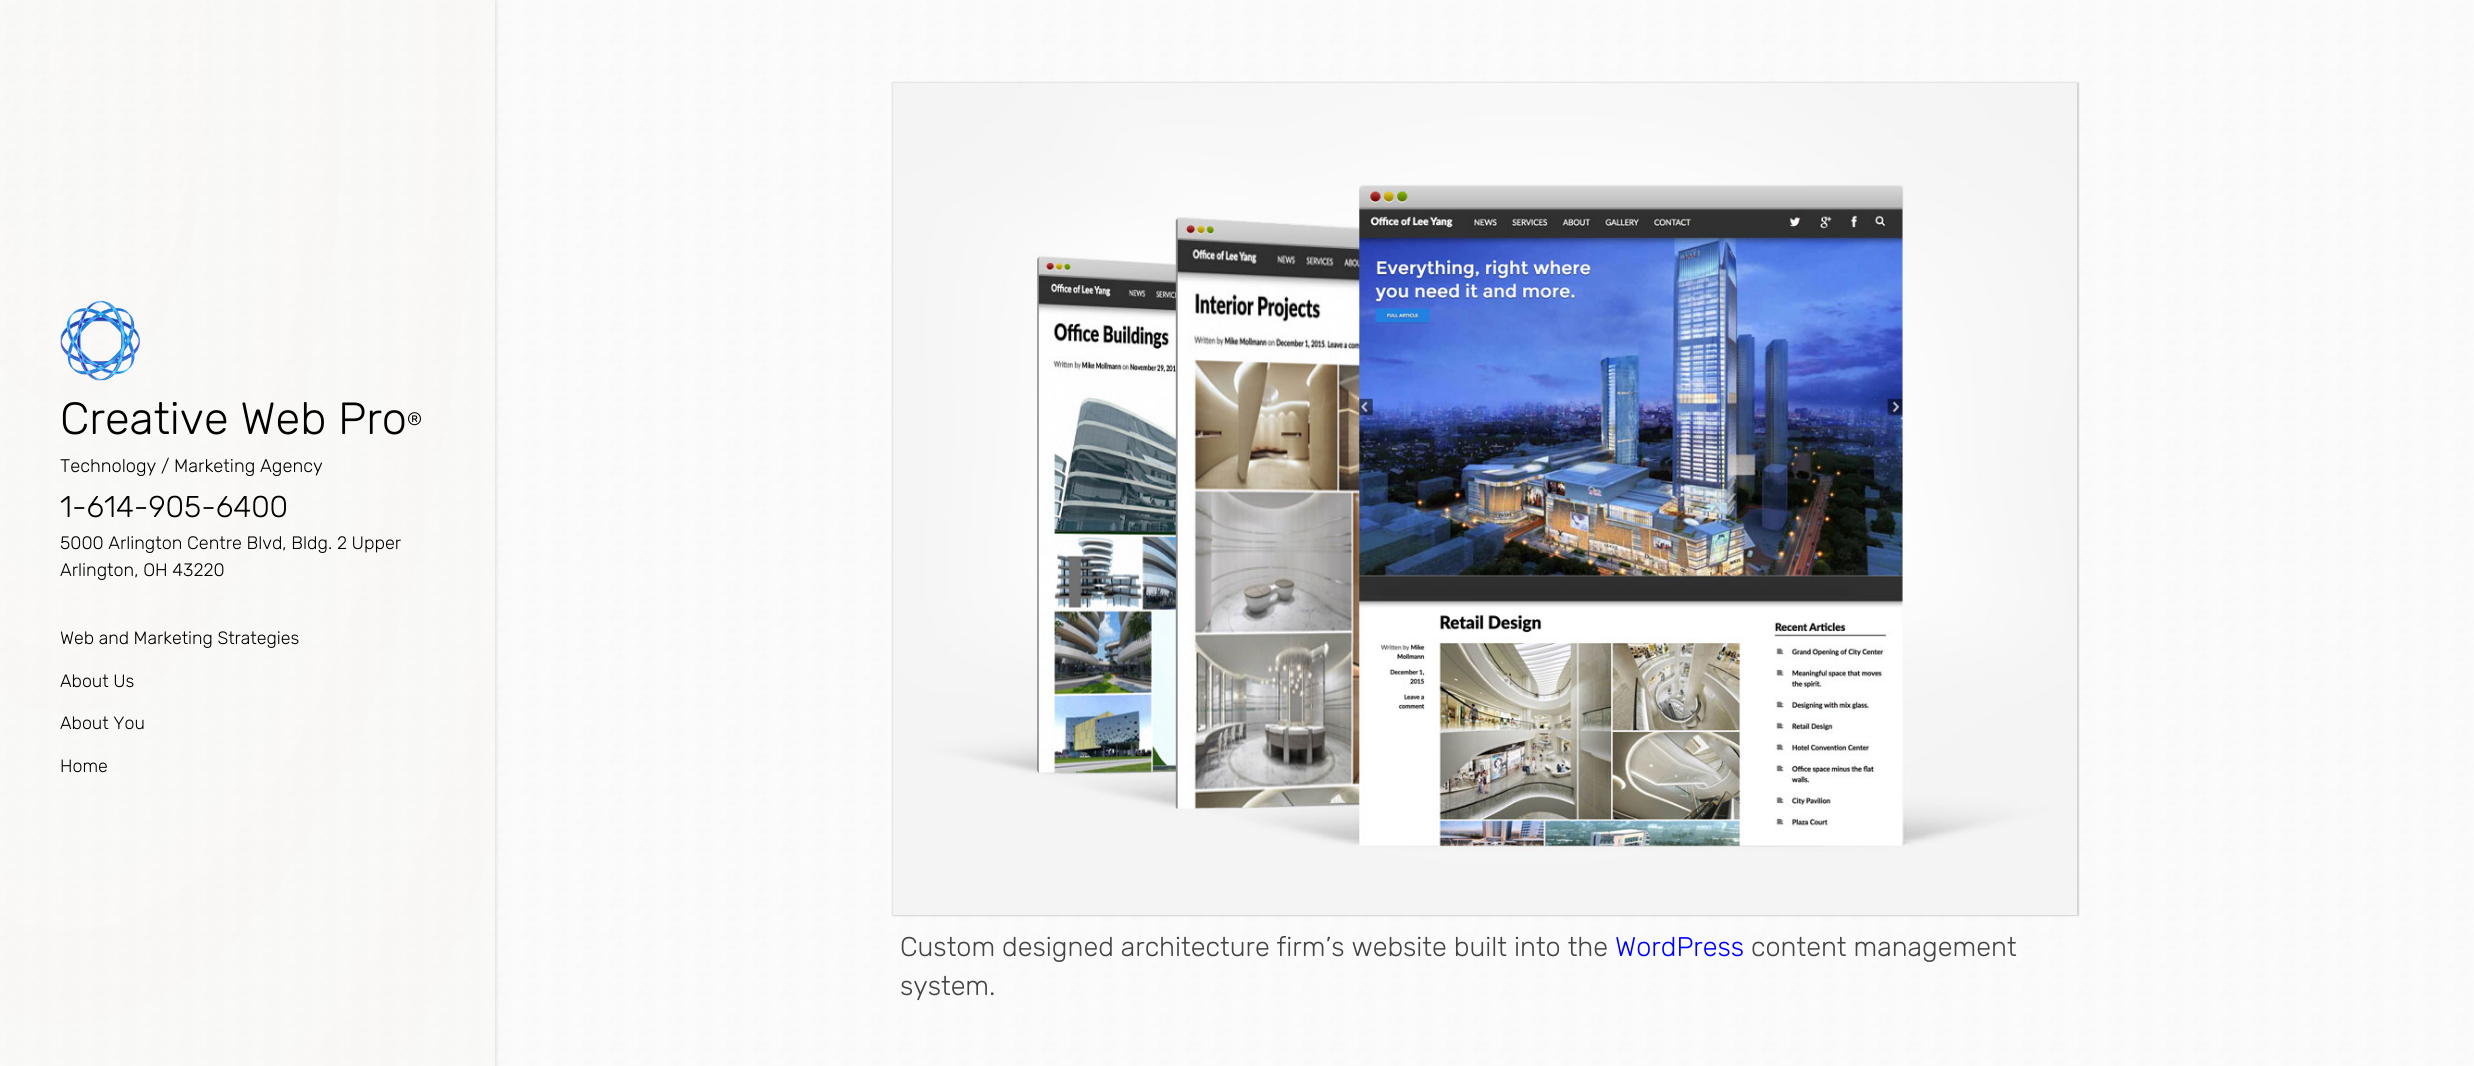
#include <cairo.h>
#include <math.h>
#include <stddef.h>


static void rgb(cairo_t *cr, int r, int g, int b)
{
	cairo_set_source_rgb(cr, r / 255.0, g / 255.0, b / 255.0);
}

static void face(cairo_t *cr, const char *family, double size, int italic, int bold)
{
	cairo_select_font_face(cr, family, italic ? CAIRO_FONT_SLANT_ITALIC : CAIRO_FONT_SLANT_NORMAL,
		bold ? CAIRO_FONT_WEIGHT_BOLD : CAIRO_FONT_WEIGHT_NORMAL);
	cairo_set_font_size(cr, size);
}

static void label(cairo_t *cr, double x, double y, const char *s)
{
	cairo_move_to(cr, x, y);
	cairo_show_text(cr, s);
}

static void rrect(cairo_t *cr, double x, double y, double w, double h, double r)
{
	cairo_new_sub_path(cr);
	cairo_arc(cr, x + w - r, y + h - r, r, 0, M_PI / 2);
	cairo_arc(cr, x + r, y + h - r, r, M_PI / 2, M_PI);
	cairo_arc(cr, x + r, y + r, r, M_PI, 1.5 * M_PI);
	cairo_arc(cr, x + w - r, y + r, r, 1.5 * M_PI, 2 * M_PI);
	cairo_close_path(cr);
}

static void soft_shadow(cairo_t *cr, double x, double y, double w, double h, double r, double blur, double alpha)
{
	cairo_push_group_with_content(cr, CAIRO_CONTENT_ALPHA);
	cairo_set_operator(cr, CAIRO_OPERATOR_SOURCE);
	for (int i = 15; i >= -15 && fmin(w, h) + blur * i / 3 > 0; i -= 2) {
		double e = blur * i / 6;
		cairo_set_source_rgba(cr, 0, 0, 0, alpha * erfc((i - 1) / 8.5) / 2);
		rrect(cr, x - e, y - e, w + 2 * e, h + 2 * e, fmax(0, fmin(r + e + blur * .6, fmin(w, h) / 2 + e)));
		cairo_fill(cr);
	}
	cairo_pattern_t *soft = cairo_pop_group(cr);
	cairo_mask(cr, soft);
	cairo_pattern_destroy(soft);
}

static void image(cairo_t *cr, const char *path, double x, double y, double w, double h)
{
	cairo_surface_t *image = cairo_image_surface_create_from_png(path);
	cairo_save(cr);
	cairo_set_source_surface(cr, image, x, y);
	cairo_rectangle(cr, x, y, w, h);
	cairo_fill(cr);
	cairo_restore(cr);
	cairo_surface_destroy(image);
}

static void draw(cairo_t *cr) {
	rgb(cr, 255, 255, 255);
	cairo_paint(cr);
	image(cr, "image0.png", 0, 0, 2474, 1066);
	cairo_save(cr);
	cairo_rectangle(cr, 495, 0, 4, 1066);
	cairo_clip(cr);
	rgb(cr, 50, 50, 50);
	soft_shadow(cr, 0, 2, 495, 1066, 0, 3, 0.2);
	cairo_restore(cr);
	image(cr, "image1.png", 60, 300, 80, 81);
	face(cr, "Rubik Light", 45, 0, 0);
	rgb(cr, 0, 0, 0);
	label(cr, 60, 434, "Creative Web Pro");
	face(cr, "Rubik Light", 18, 0, 0);
	label(cr, 407, 425, "®");
	face(cr, "Rubik Light", 18.25, 0, 0);
	label(cr, 60, 472, "Technology / Marketing Agency");
	face(cr, "Rubik Light", 30, 0, 0);
	label(cr, 60, 517, "1-614-905-6400");
	face(cr, "Rubik Light", 18, 0, 0);
	label(cr, 60, 549, "5000 Arlington Centre Blvd, Bldg. 2 Upper");
	label(cr, 60, 576, "Arlington, OH 43220");
	face(cr, "Rubik Light", 17.8, 0, 0);
	label(cr, 60, 644, "Web and Marketing Strategies");
	label(cr, 60, 687, "About Us");
	label(cr, 60, 729, "About You");
	label(cr, 60, 772, "Home");
	rgb(cr, 50, 50, 50);
	soft_shadow(cr, 893, 83, 1185, 832, 0, 1, 0.5);
	image(cr, "image2.png", 892, 82, 1186, 833);
	face(cr, "Rubik Light", 27, 0, 0);
	rgb(cr, 68, 68, 68);
	label(cr, 900, 956, "Custom designed architecture firm’s website built into the");
	rgb(cr, 0, 0, 255);
	label(cr, 1615, 956, "WordPress");
	rgb(cr, 68, 68, 68);
	label(cr, 1751, 956, "content management");
	label(cr, 900, 995, "system.");
}

int main(void) {
	cairo_surface_t *surface = cairo_image_surface_create(CAIRO_FORMAT_RGB24, 2474, 1066);
	cairo_t *cr = cairo_create(surface);
	cairo_font_options_t *options = cairo_font_options_create();
	cairo_font_options_set_hint_metrics(options, CAIRO_HINT_METRICS_OFF);
	cairo_font_options_set_hint_style(options, CAIRO_HINT_STYLE_NONE);
	cairo_set_font_options(cr, options);
	cairo_set_miter_limit(cr, 4);
	draw(cr);
	cairo_surface_write_to_png(surface, "render.png");
	cairo_font_options_destroy(options);
	cairo_destroy(cr);
	cairo_surface_destroy(surface);
	return 0;
}
